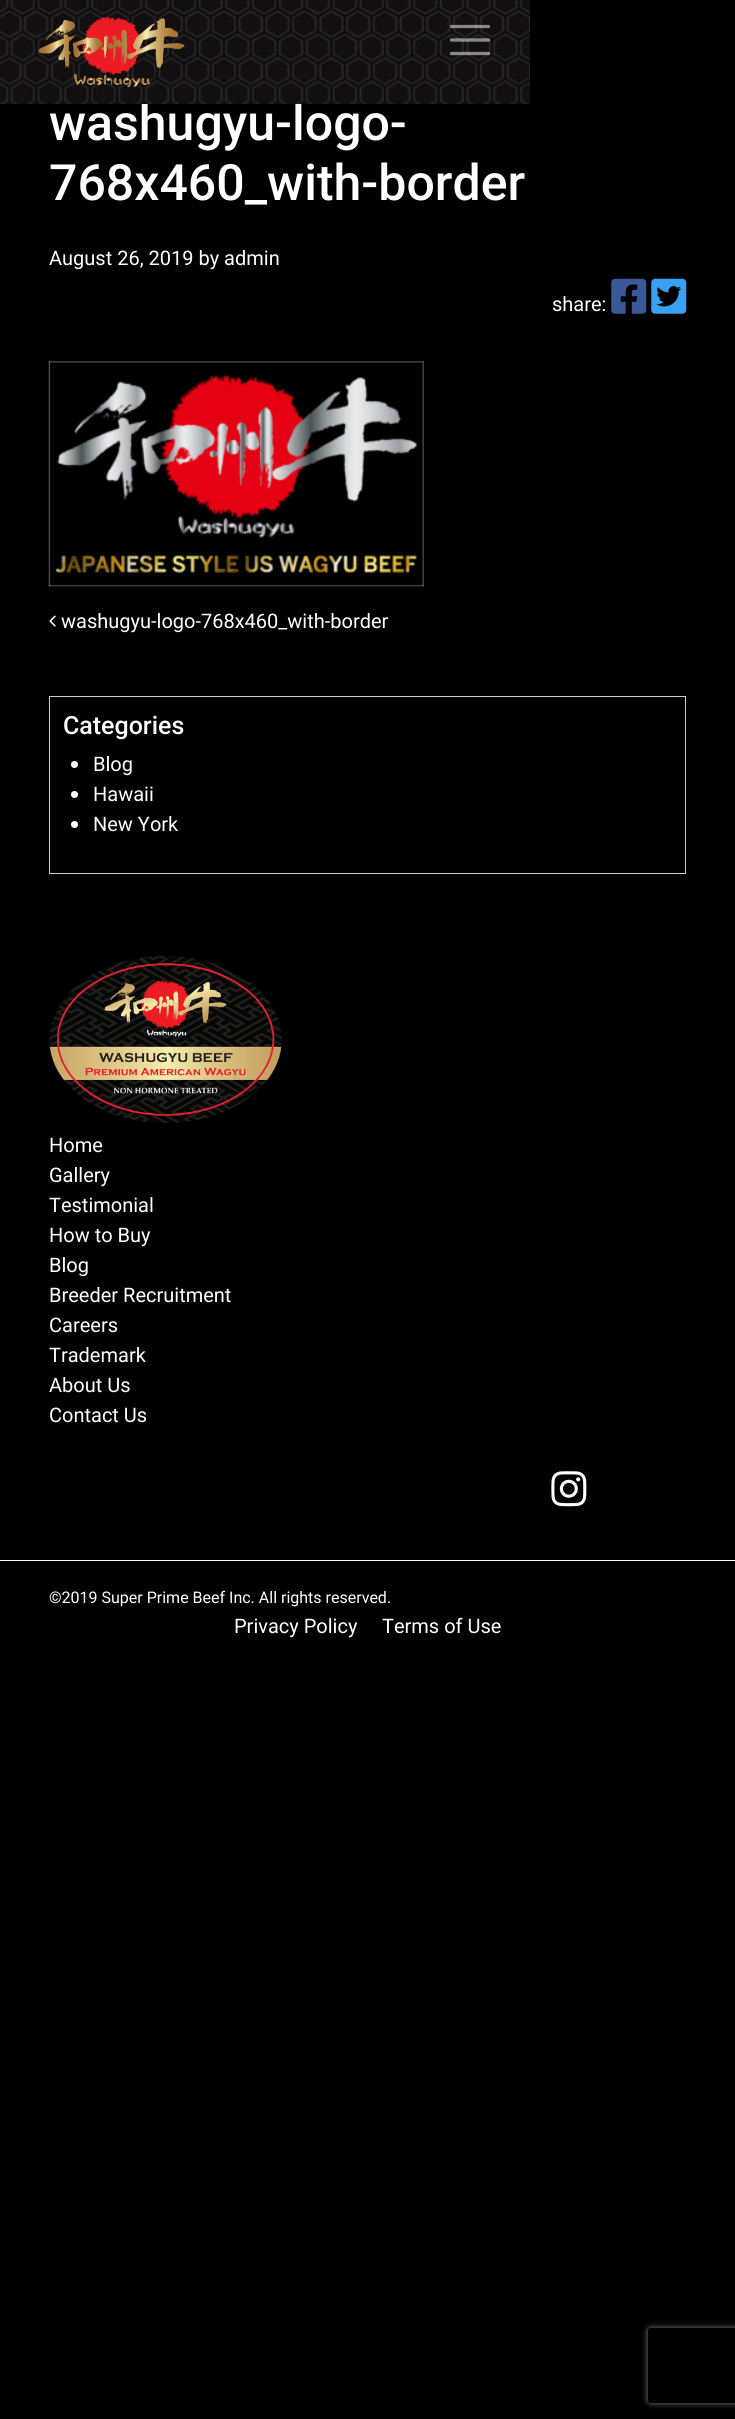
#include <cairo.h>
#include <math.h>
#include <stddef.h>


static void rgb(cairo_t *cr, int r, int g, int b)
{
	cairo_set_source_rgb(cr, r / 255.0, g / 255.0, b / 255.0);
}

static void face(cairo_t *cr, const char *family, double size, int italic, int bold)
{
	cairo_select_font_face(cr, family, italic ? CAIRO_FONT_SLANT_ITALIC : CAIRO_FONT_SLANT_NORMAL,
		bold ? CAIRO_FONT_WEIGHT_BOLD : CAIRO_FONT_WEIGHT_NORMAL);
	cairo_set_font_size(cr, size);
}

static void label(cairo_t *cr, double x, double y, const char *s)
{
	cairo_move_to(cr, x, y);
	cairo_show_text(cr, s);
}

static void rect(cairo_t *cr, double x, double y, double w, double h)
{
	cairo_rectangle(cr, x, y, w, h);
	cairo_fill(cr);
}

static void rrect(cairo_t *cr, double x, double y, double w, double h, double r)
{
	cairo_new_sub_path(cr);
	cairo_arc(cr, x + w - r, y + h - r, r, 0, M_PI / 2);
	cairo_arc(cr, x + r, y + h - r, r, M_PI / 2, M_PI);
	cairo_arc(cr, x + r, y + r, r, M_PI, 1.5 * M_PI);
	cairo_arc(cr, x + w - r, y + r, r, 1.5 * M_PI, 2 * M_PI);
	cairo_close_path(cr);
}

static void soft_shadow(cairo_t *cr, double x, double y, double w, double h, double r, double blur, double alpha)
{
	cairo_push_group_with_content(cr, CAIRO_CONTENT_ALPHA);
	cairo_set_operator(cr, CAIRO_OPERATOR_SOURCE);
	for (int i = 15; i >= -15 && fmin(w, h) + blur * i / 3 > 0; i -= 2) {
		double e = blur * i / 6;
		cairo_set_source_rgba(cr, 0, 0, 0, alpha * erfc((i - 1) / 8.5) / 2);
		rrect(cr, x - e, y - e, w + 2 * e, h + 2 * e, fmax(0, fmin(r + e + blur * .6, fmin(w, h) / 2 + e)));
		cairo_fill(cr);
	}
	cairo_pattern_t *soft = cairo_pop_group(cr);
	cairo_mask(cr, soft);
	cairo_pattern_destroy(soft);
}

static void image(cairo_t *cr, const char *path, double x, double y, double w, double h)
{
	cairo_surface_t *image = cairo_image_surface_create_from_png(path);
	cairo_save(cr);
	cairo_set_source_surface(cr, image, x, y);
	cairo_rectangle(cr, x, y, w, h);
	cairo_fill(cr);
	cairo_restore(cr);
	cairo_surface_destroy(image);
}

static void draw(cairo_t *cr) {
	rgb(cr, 0, 0, 0);
	cairo_paint(cr);
	face(cr, "Roboto Medium", 50, 0, 0);
	rgb(cr, 255, 255, 255);
	label(cr, 49, 140, "washugyu-logo-");
	image(cr, "image0.png", 0, 0, 530, 104);
	image(cr, "image1.png", 38, 16, 147, 72);
	cairo_new_path(cr);
	cairo_move_to(cr, 451.5, 26.5);
	cairo_line_to(cr, 488.5, 26.5);
	cairo_move_to(cr, 451.5, 40);
	cairo_line_to(cr, 488.5, 40);
	cairo_move_to(cr, 451.5, 53.5);
	cairo_line_to(cr, 488.5, 53.5);
	cairo_set_source_rgba(cr, 1, 1, 1, 0.5);
	cairo_set_line_width(cr, 3.3);
	cairo_set_line_cap(cr, CAIRO_LINE_CAP_ROUND);
	cairo_stroke(cr);
	rgb(cr, 255, 255, 255);
	label(cr, 49, 200, "768x460_with-border");
	face(cr, "Roboto", 20, 0, 0);
	label(cr, 49, 265, "August 26, 2019 by admin");
	label(cr, 552, 311, "share:");
	image(cr, "image2.png", 611, 278, 36, 36);
	image(cr, "image3.png", 651, 278, 36, 36);
	image(cr, "image4.png", 48, 361, 376, 226);
	image(cr, "image5.png", 49, 615, 7, 12);
	label(cr, 61, 628, "washugyu-logo-768x460_with-border");
	cairo_rectangle(cr, 49.5, 696.5, 636, 177);
	rgb(cr, 204, 204, 204);
	cairo_set_line_width(cr, 1);
	cairo_set_line_cap(cr, CAIRO_LINE_CAP_BUTT);
	cairo_stroke(cr);
	face(cr, "Roboto Medium", 25, 0, 0);
	rgb(cr, 255, 255, 255);
	label(cr, 63, 734, "Categories");
	cairo_new_path(cr);
	cairo_arc(cr, 74.5, 764.5, 3.5, 0, 2 * M_PI);
	cairo_fill(cr);
	face(cr, "Roboto", 20, 0, 0);
	label(cr, 93, 771, "Blog");
	cairo_new_path(cr);
	cairo_arc(cr, 74.5, 794.5, 3.5, 0, 2 * M_PI);
	cairo_fill(cr);
	label(cr, 93, 801, "Hawaii");
	cairo_new_path(cr);
	cairo_arc(cr, 74.5, 824.5, 3.5, 0, 2 * M_PI);
	cairo_fill(cr);
	label(cr, 93, 831, "New York");
	image(cr, "image6.png", 49, 955, 233, 168);
	label(cr, 49, 1152, "Home");
	label(cr, 49, 1182, "Gallery");
	label(cr, 49, 1212, "Testimonial");
	label(cr, 49, 1242, "How to Buy");
	label(cr, 49, 1272, "Blog");
	label(cr, 49, 1302, "Breeder Recruitment");
	label(cr, 49, 1332, "Careers");
	label(cr, 49, 1362, "Trademark");
	label(cr, 49, 1392, "About Us");
	label(cr, 49, 1422, "Contact Us");
	image(cr, "image7.png", 551, 1471, 36, 36);
	rect(cr, 0, 1560, 735, 1);
	face(cr, "Roboto", 16, 0, 0);
	label(cr, 49, 1603, "©2019 Super Prime Beef Inc. All rights reserved.");
	face(cr, "Roboto", 20, 0, 0);
	label(cr, 234, 1633, "Privacy Policy");
	label(cr, 382, 1633, "Terms of Use");
	cairo_save(cr);
	cairo_set_fill_rule(cr, CAIRO_FILL_RULE_EVEN_ODD);
	cairo_new_path(cr);
	cairo_move_to(cr, 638, 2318);
	cairo_line_to(cr, 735, 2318);
	cairo_line_to(cr, 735, 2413);
	cairo_line_to(cr, 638, 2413);
	cairo_close_path(cr);
	cairo_move_to(cr, 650.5, 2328);
	cairo_line_to(cr, 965.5, 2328);
	cairo_curve_to(cr, 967, 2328, 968, 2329, 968, 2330.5);
	cairo_line_to(cr, 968, 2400.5);
	cairo_curve_to(cr, 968, 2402, 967, 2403, 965.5, 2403);
	cairo_line_to(cr, 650.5, 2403);
	cairo_curve_to(cr, 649, 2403, 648, 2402, 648, 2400.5);
	cairo_line_to(cr, 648, 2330.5);
	cairo_curve_to(cr, 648, 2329, 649, 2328, 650.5, 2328);
	cairo_close_path(cr);
	cairo_clip(cr);
	rgb(cr, 128, 128, 128);
	soft_shadow(cr, 648, 2328, 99, 75, 2.5, 3, 1);
	cairo_restore(cr);
}

int main(void) {
	cairo_surface_t *surface = cairo_image_surface_create(CAIRO_FORMAT_RGB24, 735, 2419);
	cairo_t *cr = cairo_create(surface);
	cairo_font_options_t *options = cairo_font_options_create();
	cairo_font_options_set_hint_metrics(options, CAIRO_HINT_METRICS_OFF);
	cairo_font_options_set_hint_style(options, CAIRO_HINT_STYLE_NONE);
	cairo_set_font_options(cr, options);
	cairo_set_miter_limit(cr, 4);
	draw(cr);
	cairo_surface_write_to_png(surface, "render.png");
	cairo_font_options_destroy(options);
	cairo_destroy(cr);
	cairo_surface_destroy(surface);
	return 0;
}
